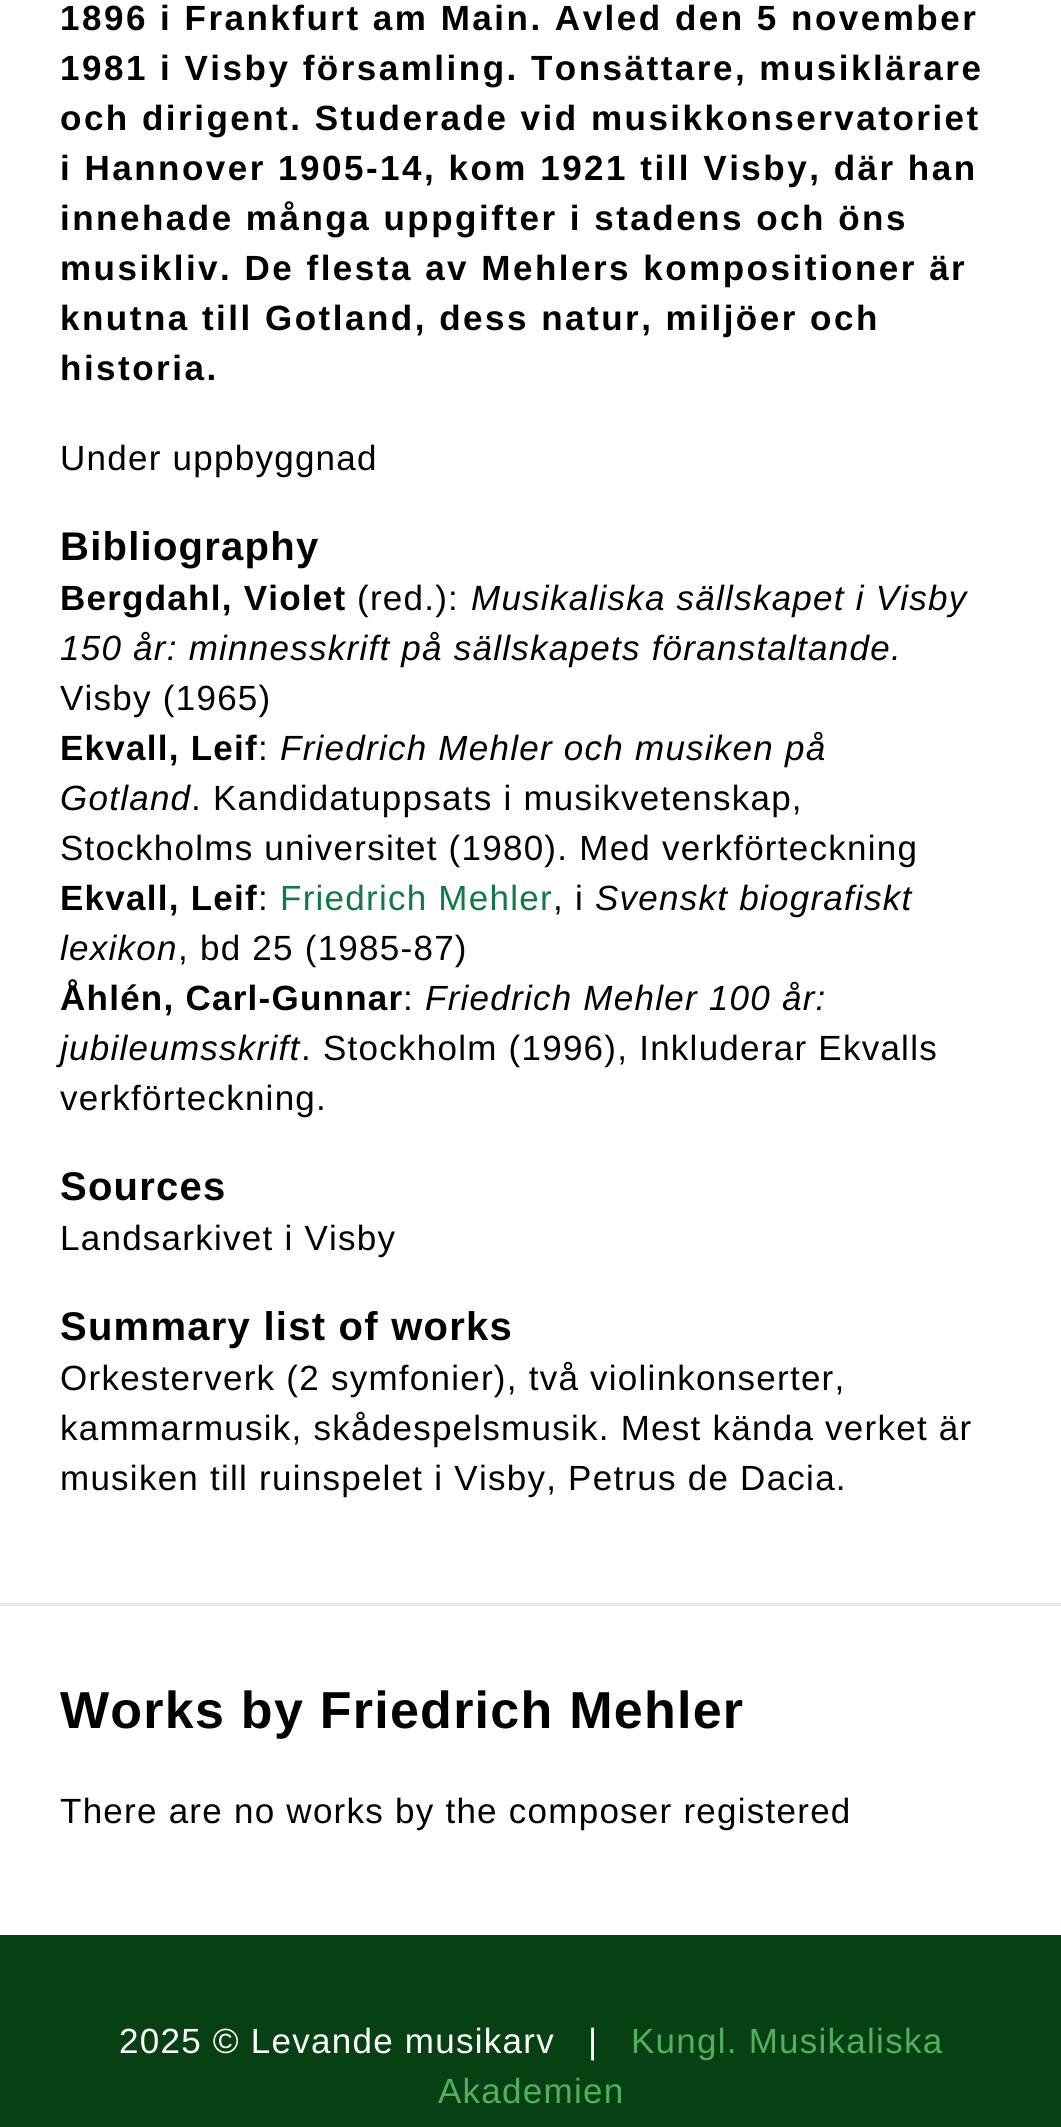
#include <cairo.h>
#include <math.h>
#include <stddef.h>


static void rgb(cairo_t *cr, int r, int g, int b)
{
	cairo_set_source_rgb(cr, r / 255.0, g / 255.0, b / 255.0);
}

static void face(cairo_t *cr, const char *family, double size, int italic, int bold)
{
	cairo_select_font_face(cr, family, italic ? CAIRO_FONT_SLANT_ITALIC : CAIRO_FONT_SLANT_NORMAL,
		bold ? CAIRO_FONT_WEIGHT_BOLD : CAIRO_FONT_WEIGHT_NORMAL);
	cairo_set_font_size(cr, size);
}

static void tracked(cairo_t *cr, double x, double y, const char *s, double letter, double word)
{
	cairo_move_to(cr, x, y);
	while (*s) {
		char ch[5] = {0};
		int n = 0;
		do ch[n++] = *s++; while ((*s & 0xC0) == 0x80);
		cairo_show_text(cr, ch);
		cairo_rel_move_to(cr, letter + word * (*ch == ' '), 0);
	}
}

static void rect(cairo_t *cr, double x, double y, double w, double h)
{
	cairo_rectangle(cr, x, y, w, h);
	cairo_fill(cr);
}

static void draw(cairo_t *cr) {
	rgb(cr, 7, 65, 19);
	cairo_paint(cr);
	rgb(cr, 255, 255, 255);
	rect(cr, 0, 0, 1061, 1935);
	face(cr, "Liberation Sans", 35, 0, 1);
	rgb(cr, 0, 0, 0);
	tracked(cr, 60, 30, "1896 i Frankfurt am Main. Avled den 5 november", 2.5, 0);
	tracked(cr, 60, 80, "1981 i Visby församling. Tonsättare, musiklärare", 2.5, 0);
	tracked(cr, 60, 130, "och dirigent. Studerade vid musikkonservatoriet", 2.5, 0);
	tracked(cr, 60, 180, "i Hannover 1905-14, kom 1921 till Visby, där han", 2.5, 0);
	tracked(cr, 60, 230, "innehade många uppgifter i stadens och öns", 2.5, 0);
	tracked(cr, 60, 280, "musikliv. De flesta av Mehlers kompositioner är", 2.5, 0);
	tracked(cr, 60, 330, "knutna till Gotland, dess natur, miljöer och", 2.5, 0);
	tracked(cr, 60, 380, "historia.", 2.5, 0);
	face(cr, "Liberation Sans", 35, 0, 0);
	tracked(cr, 60, 470, "Under uppbyggnad", 1.25, 0);
	face(cr, "Liberation Sans", 40, 0, 1);
	tracked(cr, 60, 560, "Bibliography", 1.25, 0);
	face(cr, "Liberation Sans", 35, 0, 1);
	tracked(cr, 60, 610, "Bergdahl, Violet", 1.25, 0);
	face(cr, "Liberation Sans", 35, 0, 0);
	tracked(cr, 357, 610, "(red.):", 1.25, 0);
	face(cr, "Liberation Sans", 35, 1, 0);
	tracked(cr, 471, 610, "Musikaliska sällskapet i Visby", 1.25, 0);
	tracked(cr, 60, 660, "150 år: minnesskrift på sällskapets föranstaltande.", 1.25, 0);
	face(cr, "Liberation Sans", 35, 0, 0);
	tracked(cr, 60, 710, "Visby (1965)", 1.25, 0);
	face(cr, "Liberation Sans", 35, 0, 1);
	tracked(cr, 60, 760, "Ekvall, Leif", 1.25, 0);
	face(cr, "Liberation Sans", 35, 0, 0);
	tracked(cr, 258, 760, ":", 1.25, 0);
	face(cr, "Liberation Sans", 35, 1, 0);
	tracked(cr, 280, 760, "Friedrich Mehler och musiken på", 1.25, 0);
	tracked(cr, 60, 810, "Gotland", 1.25, 0);
	face(cr, "Liberation Sans", 35, 0, 0);
	tracked(cr, 191, 810, ". Kandidatuppsats i musikvetenskap,", 1.25, 0);
	tracked(cr, 60, 860, "Stockholms universitet (1980). Med verkförteckning", 1.25, 0);
	face(cr, "Liberation Sans", 35, 0, 1);
	tracked(cr, 60, 910, "Ekvall, Leif", 1.25, 0);
	face(cr, "Liberation Sans", 35, 0, 0);
	tracked(cr, 258, 910, ":", 1.25, 0);
	rgb(cr, 16, 121, 72);
	tracked(cr, 280, 910, "Friedrich Mehler", 1.25, 0);
	rgb(cr, 0, 0, 0);
	tracked(cr, 553, 910, ", i", 1.25, 0);
	face(cr, "Liberation Sans", 35, 1, 0);
	tracked(cr, 595, 910, "Svenskt biografiskt", 1.25, 0);
	tracked(cr, 60, 960, "lexikon", 1.25, 0);
	face(cr, "Liberation Sans", 35, 0, 0);
	tracked(cr, 178, 960, ", bd 25 (1985-87)", 1.25, 0);
	face(cr, "Liberation Sans", 35, 0, 1);
	tracked(cr, 60, 1010, "Åhlén, Carl-Gunnar", 1.25, 0);
	face(cr, "Liberation Sans", 35, 0, 0);
	tracked(cr, 403, 1010, ":", 1.25, 0);
	face(cr, "Liberation Sans", 35, 1, 0);
	tracked(cr, 425, 1010, "Friedrich Mehler 100 år:", 1.25, 0);
	tracked(cr, 60, 1060, "jubileumsskrift", 1.25, 0);
	face(cr, "Liberation Sans", 35, 0, 0);
	tracked(cr, 301, 1060, ". Stockholm (1996), Inkluderar Ekvalls", 1.25, 0);
	tracked(cr, 60, 1110, "verkförteckning.", 1.25, 0);
	face(cr, "Liberation Sans", 40, 0, 1);
	tracked(cr, 60, 1200, "Sources", 1.25, 0);
	face(cr, "Liberation Sans", 35, 0, 0);
	tracked(cr, 60, 1250, "Landsarkivet i Visby", 1.25, 0);
	face(cr, "Liberation Sans", 40, 0, 1);
	tracked(cr, 60, 1340, "Summary list of works", 1.25, 0);
	face(cr, "Liberation Sans", 35, 0, 0);
	tracked(cr, 60, 1390, "Orkesterverk (2 symfonier), två violinkonserter,", 1.25, 0);
	tracked(cr, 60, 1440, "kammarmusik, skådespelsmusik. Mest kända verket är", 1.25, 0);
	tracked(cr, 60, 1490, "musiken till ruinspelet i Visby, Petrus de Dacia.", 1.25, 0);
	rgb(cr, 229, 231, 235);
	rect(cr, 0, 1603, 1061, 3);
	face(cr, "Liberation Sans", 52, 0, 1);
	rgb(cr, 0, 0, 0);
	tracked(cr, 60, 1728, "Works by Friedrich Mehler", 1.25, 0);
	face(cr, "Liberation Sans", 35, 0, 0);
	tracked(cr, 60, 1823, "There are no works by the composer registered", 1.25, 0);
	rgb(cr, 255, 255, 255);
	tracked(cr, 119, 2053, "2025 © Levande musikarv", 1.25, 0);
	tracked(cr, 588, 2053, "|", 1.25, 0);
	rgb(cr, 80, 176, 91);
	tracked(cr, 631, 2053, "Kungl. Musikaliska", 1.25, 0);
	tracked(cr, 438, 2103, "Akademien", 1.25, 0);
}

int main(void) {
	cairo_surface_t *surface = cairo_image_surface_create(CAIRO_FORMAT_RGB24, 1061, 2127);
	cairo_t *cr = cairo_create(surface);
	cairo_font_options_t *options = cairo_font_options_create();
	cairo_font_options_set_hint_metrics(options, CAIRO_HINT_METRICS_OFF);
	cairo_font_options_set_hint_style(options, CAIRO_HINT_STYLE_NONE);
	cairo_set_font_options(cr, options);
	cairo_set_miter_limit(cr, 4);
	draw(cr);
	cairo_surface_write_to_png(surface, "render.png");
	cairo_font_options_destroy(options);
	cairo_destroy(cr);
	cairo_surface_destroy(surface);
	return 0;
}
